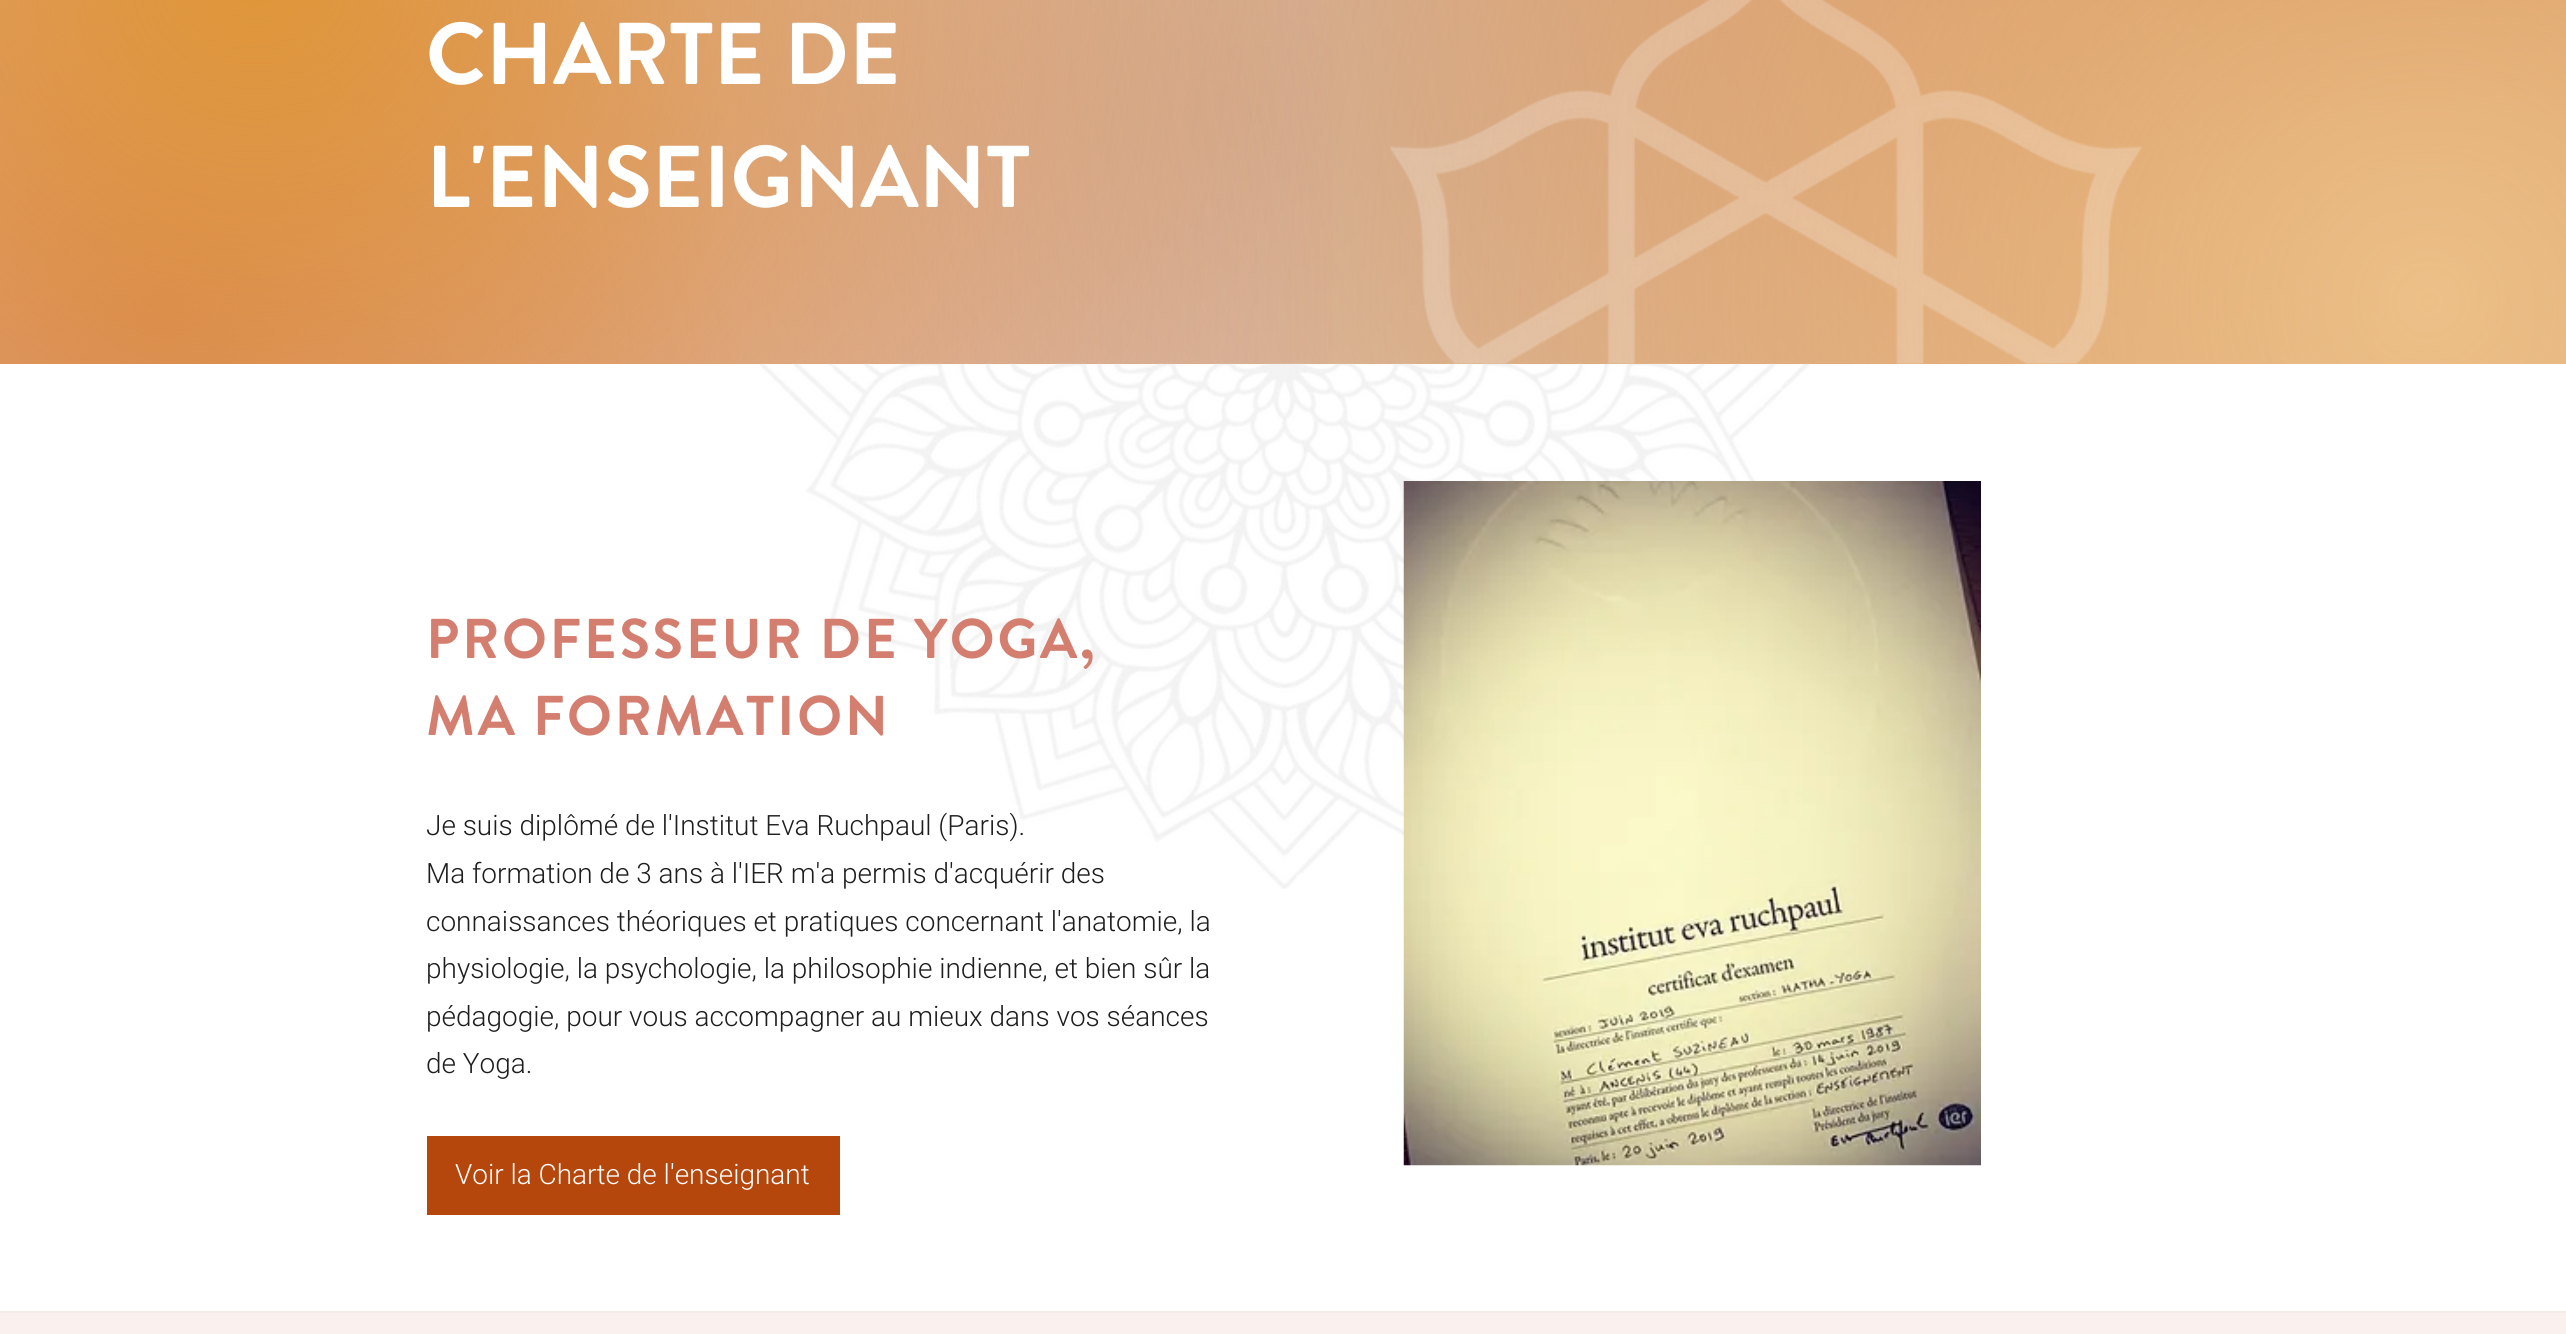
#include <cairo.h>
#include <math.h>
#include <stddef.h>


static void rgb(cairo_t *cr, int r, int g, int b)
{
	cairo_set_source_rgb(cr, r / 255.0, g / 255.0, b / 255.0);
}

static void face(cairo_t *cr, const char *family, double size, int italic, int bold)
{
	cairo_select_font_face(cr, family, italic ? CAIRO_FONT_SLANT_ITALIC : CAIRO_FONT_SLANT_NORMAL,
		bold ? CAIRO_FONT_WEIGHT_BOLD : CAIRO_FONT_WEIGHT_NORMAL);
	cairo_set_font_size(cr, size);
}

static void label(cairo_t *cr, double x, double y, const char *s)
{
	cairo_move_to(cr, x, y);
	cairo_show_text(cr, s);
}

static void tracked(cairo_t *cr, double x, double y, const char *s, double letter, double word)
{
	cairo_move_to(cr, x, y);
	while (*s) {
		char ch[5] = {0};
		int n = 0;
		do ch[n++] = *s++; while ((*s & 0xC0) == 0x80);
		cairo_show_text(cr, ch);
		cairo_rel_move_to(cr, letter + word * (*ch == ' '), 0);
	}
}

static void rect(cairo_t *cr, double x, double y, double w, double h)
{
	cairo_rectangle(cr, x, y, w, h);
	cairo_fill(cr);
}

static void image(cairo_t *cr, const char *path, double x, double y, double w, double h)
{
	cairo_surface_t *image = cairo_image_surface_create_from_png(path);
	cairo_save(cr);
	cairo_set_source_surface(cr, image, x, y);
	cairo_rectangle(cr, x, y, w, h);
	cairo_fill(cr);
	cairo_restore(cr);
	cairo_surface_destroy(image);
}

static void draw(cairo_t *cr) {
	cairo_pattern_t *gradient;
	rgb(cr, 255, 255, 255);
	cairo_paint(cr);
	rgb(cr, 250, 240, 238);
	rect(cr, 0, 1313, 2566, 21);
	gradient = cairo_pattern_create_radial(1255, 114, 0, 1255, 114, 1335);
	cairo_pattern_add_color_stop_rgba(gradient, 0, 0.824, 0.824, 0.824, 1);
	cairo_pattern_add_color_stop_rgba(gradient, 1, 1, 1, 1, 1);
	cairo_set_source(cr, gradient);
	cairo_pattern_destroy(gradient);
	rect(cr, 0, 0, 2518, 364);
	gradient = cairo_pattern_create_radial(2405, -75, 0, 2405, -75, 2445);
	cairo_pattern_add_color_stop_rgba(gradient, 0, 0.71, 0.278, 0.051, 1);
	cairo_pattern_add_color_stop_rgba(gradient, 0.7, 0.71, 0.278, 0.051, 0);
	cairo_set_source(cr, gradient);
	cairo_pattern_destroy(gradient);
	rect(cr, 736, 0, 1830, 364);
	gradient = cairo_pattern_create_radial(2429, 302, 0, 2429, 302, 2467);
	cairo_pattern_add_color_stop_rgba(gradient, 0, 0.925, 0.753, 0.533, 1);
	cairo_pattern_add_color_stop_rgba(gradient, 0.7, 0.925, 0.753, 0.533, 0);
	cairo_set_source(cr, gradient);
	cairo_pattern_destroy(gradient);
	rect(cr, 761, 0, 1805, 364);
	gradient = cairo_pattern_create_radial(167, 305, 0, 167, 305, 2440);
	cairo_pattern_add_color_stop_rgba(gradient, 0, 0.831, 0.494, 0.435, 0.99);
	cairo_pattern_add_color_stop_rgba(gradient, 0.5, 0.831, 0.494, 0.435, 0);
	cairo_set_source(cr, gradient);
	cairo_pattern_destroy(gradient);
	rect(cr, 0, 0, 1333, 364);
	gradient = cairo_pattern_create_radial(255, -28, 0, 255, -28, 2345);
	cairo_pattern_add_color_stop_rgba(gradient, 0, 0.875, 0.588, 0.22, 1);
	cairo_pattern_add_color_stop_rgba(gradient, 0.45, 0.875, 0.588, 0.22, 0);
	cairo_set_source(cr, gradient);
	cairo_pattern_destroy(gradient);
	rect(cr, 0, 0, 1282, 364);
	face(cr, "Brandon Grotesque", 87.5, 0, 1);
	rgb(cr, 255, 255, 255);
	label(cr, 426, 84, "CHARTE DE");
	label(cr, 426, 207, "L'ENSEIGNANT");
	image(cr, "image0.png", 1390, 0, 752, 364);
	image(cr, "image1.png", 760, 363, 1049, 526);
	face(cr, "Brandon Grotesque", 56, 0, 1);
	rgb(cr, 212, 126, 111);
	tracked(cr, 426, 658, "PROFESSEUR DE YOGA,", 2.75, 0);
	tracked(cr, 426, 735, "MA FORMATION", 2.75, 0);
	face(cr, "Roboto Light", 28, 0, 0);
	rgb(cr, 30, 30, 30);
	label(cr, 426, 835, "Je suis diplômé de l'Institut Eva Ruchpaul (Paris).");
	label(cr, 426, 883, "Ma formation de 3 ans à l'IER m'a permis d'acquérir des");
	label(cr, 426, 931, "connaissances théoriques et pratiques concernant l'anatomie, la");
	label(cr, 426, 978, "physiologie, la psychologie, la philosophie indienne, et bien sûr la");
	label(cr, 426, 1026, "pédagogie, pour vous accompagner au mieux dans vos séances");
	label(cr, 426, 1073, "de Yoga.");
	rgb(cr, 181, 71, 13);
	rect(cr, 427, 1136, 413, 79);
	rgb(cr, 255, 255, 255);
	label(cr, 455, 1184, "Voir la Charte de l'enseignant");
	image(cr, "image2.png", 1403, 481, 578, 685);
	rgb(cr, 245, 235, 233);
	rect(cr, 0, 1311, 2566, 2);
}

int main(void) {
	cairo_surface_t *surface = cairo_image_surface_create(CAIRO_FORMAT_RGB24, 2566, 1334);
	cairo_t *cr = cairo_create(surface);
	cairo_font_options_t *options = cairo_font_options_create();
	cairo_font_options_set_hint_metrics(options, CAIRO_HINT_METRICS_OFF);
	cairo_font_options_set_hint_style(options, CAIRO_HINT_STYLE_NONE);
	cairo_set_font_options(cr, options);
	cairo_set_miter_limit(cr, 4);
	draw(cr);
	cairo_surface_write_to_png(surface, "render.png");
	cairo_font_options_destroy(options);
	cairo_destroy(cr);
	cairo_surface_destroy(surface);
	return 0;
}
